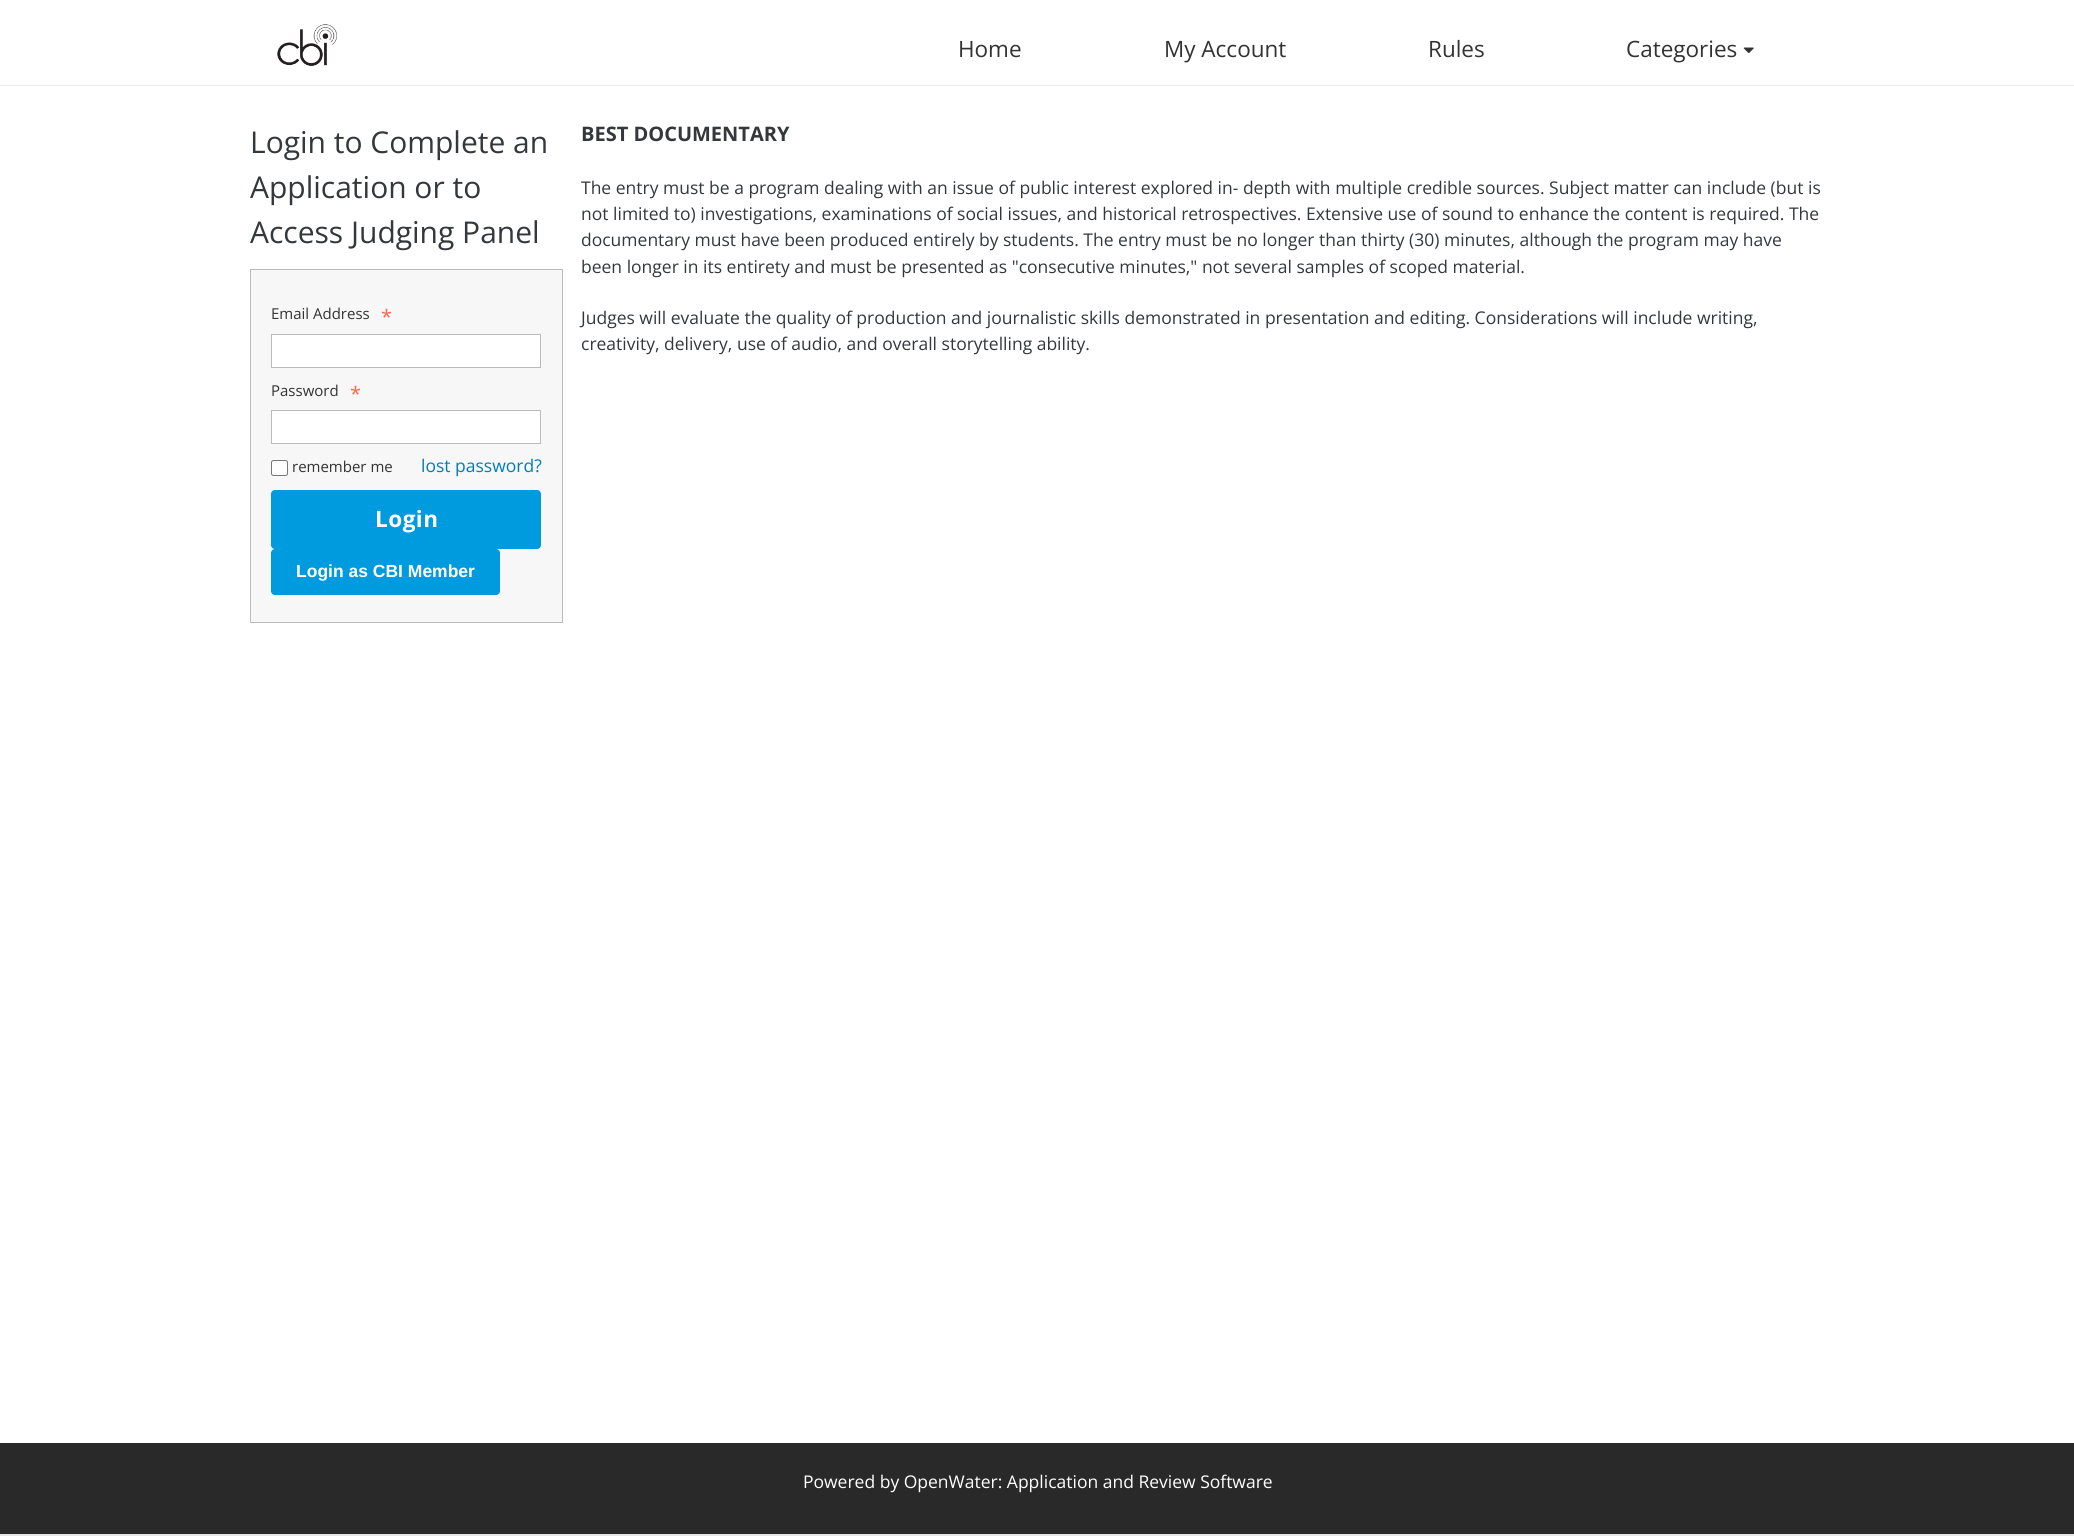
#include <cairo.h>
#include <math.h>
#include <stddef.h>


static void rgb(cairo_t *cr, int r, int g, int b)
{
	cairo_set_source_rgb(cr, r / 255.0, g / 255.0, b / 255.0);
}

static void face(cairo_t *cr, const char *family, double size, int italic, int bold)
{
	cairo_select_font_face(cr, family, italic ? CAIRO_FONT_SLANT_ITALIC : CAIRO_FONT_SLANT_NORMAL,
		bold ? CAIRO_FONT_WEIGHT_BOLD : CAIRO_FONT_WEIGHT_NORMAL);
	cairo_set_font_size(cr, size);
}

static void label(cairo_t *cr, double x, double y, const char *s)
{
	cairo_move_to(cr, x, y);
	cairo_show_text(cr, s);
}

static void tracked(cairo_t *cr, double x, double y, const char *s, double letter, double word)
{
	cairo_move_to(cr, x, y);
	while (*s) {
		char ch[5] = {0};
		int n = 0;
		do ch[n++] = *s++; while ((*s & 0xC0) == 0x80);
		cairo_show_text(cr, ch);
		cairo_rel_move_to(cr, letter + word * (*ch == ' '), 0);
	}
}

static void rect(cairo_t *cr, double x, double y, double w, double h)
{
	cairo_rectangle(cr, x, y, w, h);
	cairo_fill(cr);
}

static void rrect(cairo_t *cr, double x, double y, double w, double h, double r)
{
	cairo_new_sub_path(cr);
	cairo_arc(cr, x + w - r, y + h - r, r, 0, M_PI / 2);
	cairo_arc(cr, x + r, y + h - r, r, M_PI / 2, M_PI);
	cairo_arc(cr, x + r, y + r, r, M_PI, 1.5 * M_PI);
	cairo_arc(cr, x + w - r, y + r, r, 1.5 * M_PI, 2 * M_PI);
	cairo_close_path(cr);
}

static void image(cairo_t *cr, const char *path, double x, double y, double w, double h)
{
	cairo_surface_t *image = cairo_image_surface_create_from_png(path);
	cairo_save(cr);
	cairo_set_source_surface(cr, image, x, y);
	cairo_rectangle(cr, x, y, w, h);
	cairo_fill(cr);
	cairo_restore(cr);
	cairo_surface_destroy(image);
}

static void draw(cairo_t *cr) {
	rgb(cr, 230, 230, 230);
	cairo_paint(cr);
	rgb(cr, 255, 255, 255);
	rect(cr, 0, 0, 2074, 1443);
	rgb(cr, 234, 234, 234);
	rect(cr, 0, 85, 2074, 1);
	image(cr, "image0.png", 277, 24, 60, 43);
	face(cr, "Open Sans", 22.5, 0, 0);
	rgb(cr, 51, 51, 51);
	label(cr, 958, 57, "Home");
	label(cr, 1164, 57, "My Account");
	label(cr, 1428, 57, "Rules");
	label(cr, 1626, 57, "Categories");
	image(cr, "image1.png", 1743, 47, 11, 7);
	face(cr, "Open Sans", 30, 0, 0);
	rgb(cr, 52, 56, 60);
	label(cr, 250, 153, "Login to Complete an");
	label(cr, 250, 198, "Application or to");
	label(cr, 250, 243, "Access Judging Panel");
	rgb(cr, 247, 247, 247);
	cairo_rectangle(cr, 250.5, 269.5, 312, 353);
	cairo_fill_preserve(cr);
	rgb(cr, 187, 187, 187);
	cairo_set_line_width(cr, 1);
	cairo_stroke(cr);
	face(cr, "Open Sans", 15, 0, 0);
	rgb(cr, 51, 51, 51);
	label(cr, 271, 319, "Email Address");
	face(cr, "Open Sans", 20, 0, 0);
	rgb(cr, 255, 99, 71);
	label(cr, 381, 324, "*");
	rgb(cr, 255, 255, 255);
	cairo_rectangle(cr, 271.5, 334.5, 269, 33);
	cairo_fill_preserve(cr);
	rgb(cr, 187, 187, 187);
	cairo_stroke(cr);
	face(cr, "Open Sans", 15, 0, 0);
	rgb(cr, 51, 51, 51);
	label(cr, 271, 396, "Password");
	face(cr, "Open Sans", 20, 0, 0);
	rgb(cr, 255, 99, 71);
	label(cr, 350, 401, "*");
	rgb(cr, 255, 255, 255);
	cairo_rectangle(cr, 271.5, 410.5, 269, 33);
	cairo_fill_preserve(cr);
	rgb(cr, 187, 187, 187);
	cairo_stroke(cr);
	rgb(cr, 255, 255, 255);
	rrect(cr, 271.5, 460.5, 16, 15, 2);
	cairo_fill_preserve(cr);
	rgb(cr, 118, 118, 118);
	cairo_stroke(cr);
	face(cr, "Open Sans", 15, 0, 0);
	rgb(cr, 51, 51, 51);
	label(cr, 292, 472, "remember me");
	face(cr, "Open Sans", 17.5, 0, 0);
	rgb(cr, 0, 125, 184);
	label(cr, 421, 472, "lost password?");
	rgb(cr, 0, 154, 223);
	rrect(cr, 271, 490, 270, 59, 4);
	cairo_fill(cr);
	face(cr, "Open Sans", 22.5, 0, 1);
	rgb(cr, 255, 255, 255);
	tracked(cr, 375, 527, "Login", 0.5, 0);
	rgb(cr, 0, 154, 223);
	rrect(cr, 271, 549, 229, 46, 4);
	cairo_fill(cr);
	face(cr, "Liberation Sans", 17.5, 0, 1);
	rgb(cr, 255, 255, 255);
	label(cr, 296, 577, "Login as CBI Member");
	face(cr, "Open Sans", 20, 0, 1);
	rgb(cr, 52, 56, 60);
	label(cr, 581, 141, "BEST DOCUMENTARY");
	face(cr, "Open Sans", 17.5, 0, 0);
	label(cr, 581, 194, "The entry must be a program dealing with an issue of public interest explored in- depth with multiple credible sources. Subject matter can include (but is");
	label(cr, 581, 220, "not limited to) investigations, examinations of social issues, and historical retrospectives. Extensive use of sound to enhance the content is required. The");
	label(cr, 581, 246, "documentary must have been produced entirely by students. The entry must be no longer than thirty (30) minutes, although the program may have");
	label(cr, 581, 273, "been longer in its entirety and must be presented as \"consecutive minutes,\" not several samples of scoped material.");
	label(cr, 581, 324, "Judges will evaluate the quality of production and journalistic skills demonstrated in presentation and editing. Considerations will include writing,");
	label(cr, 581, 350, "creativity, delivery, use of audio, and overall storytelling ability.");
	rgb(cr, 41, 41, 41);
	rect(cr, 0, 1443, 2074, 91);
	rgb(cr, 255, 255, 255);
	label(cr, 803, 1488, "Powered by OpenWater: Application and Review Software");
}

int main(void) {
	cairo_surface_t *surface = cairo_image_surface_create(CAIRO_FORMAT_RGB24, 2074, 1536);
	cairo_t *cr = cairo_create(surface);
	cairo_font_options_t *options = cairo_font_options_create();
	cairo_font_options_set_hint_metrics(options, CAIRO_HINT_METRICS_OFF);
	cairo_font_options_set_hint_style(options, CAIRO_HINT_STYLE_NONE);
	cairo_set_font_options(cr, options);
	cairo_set_miter_limit(cr, 4);
	draw(cr);
	cairo_surface_write_to_png(surface, "render.png");
	cairo_font_options_destroy(options);
	cairo_destroy(cr);
	cairo_surface_destroy(surface);
	return 0;
}
